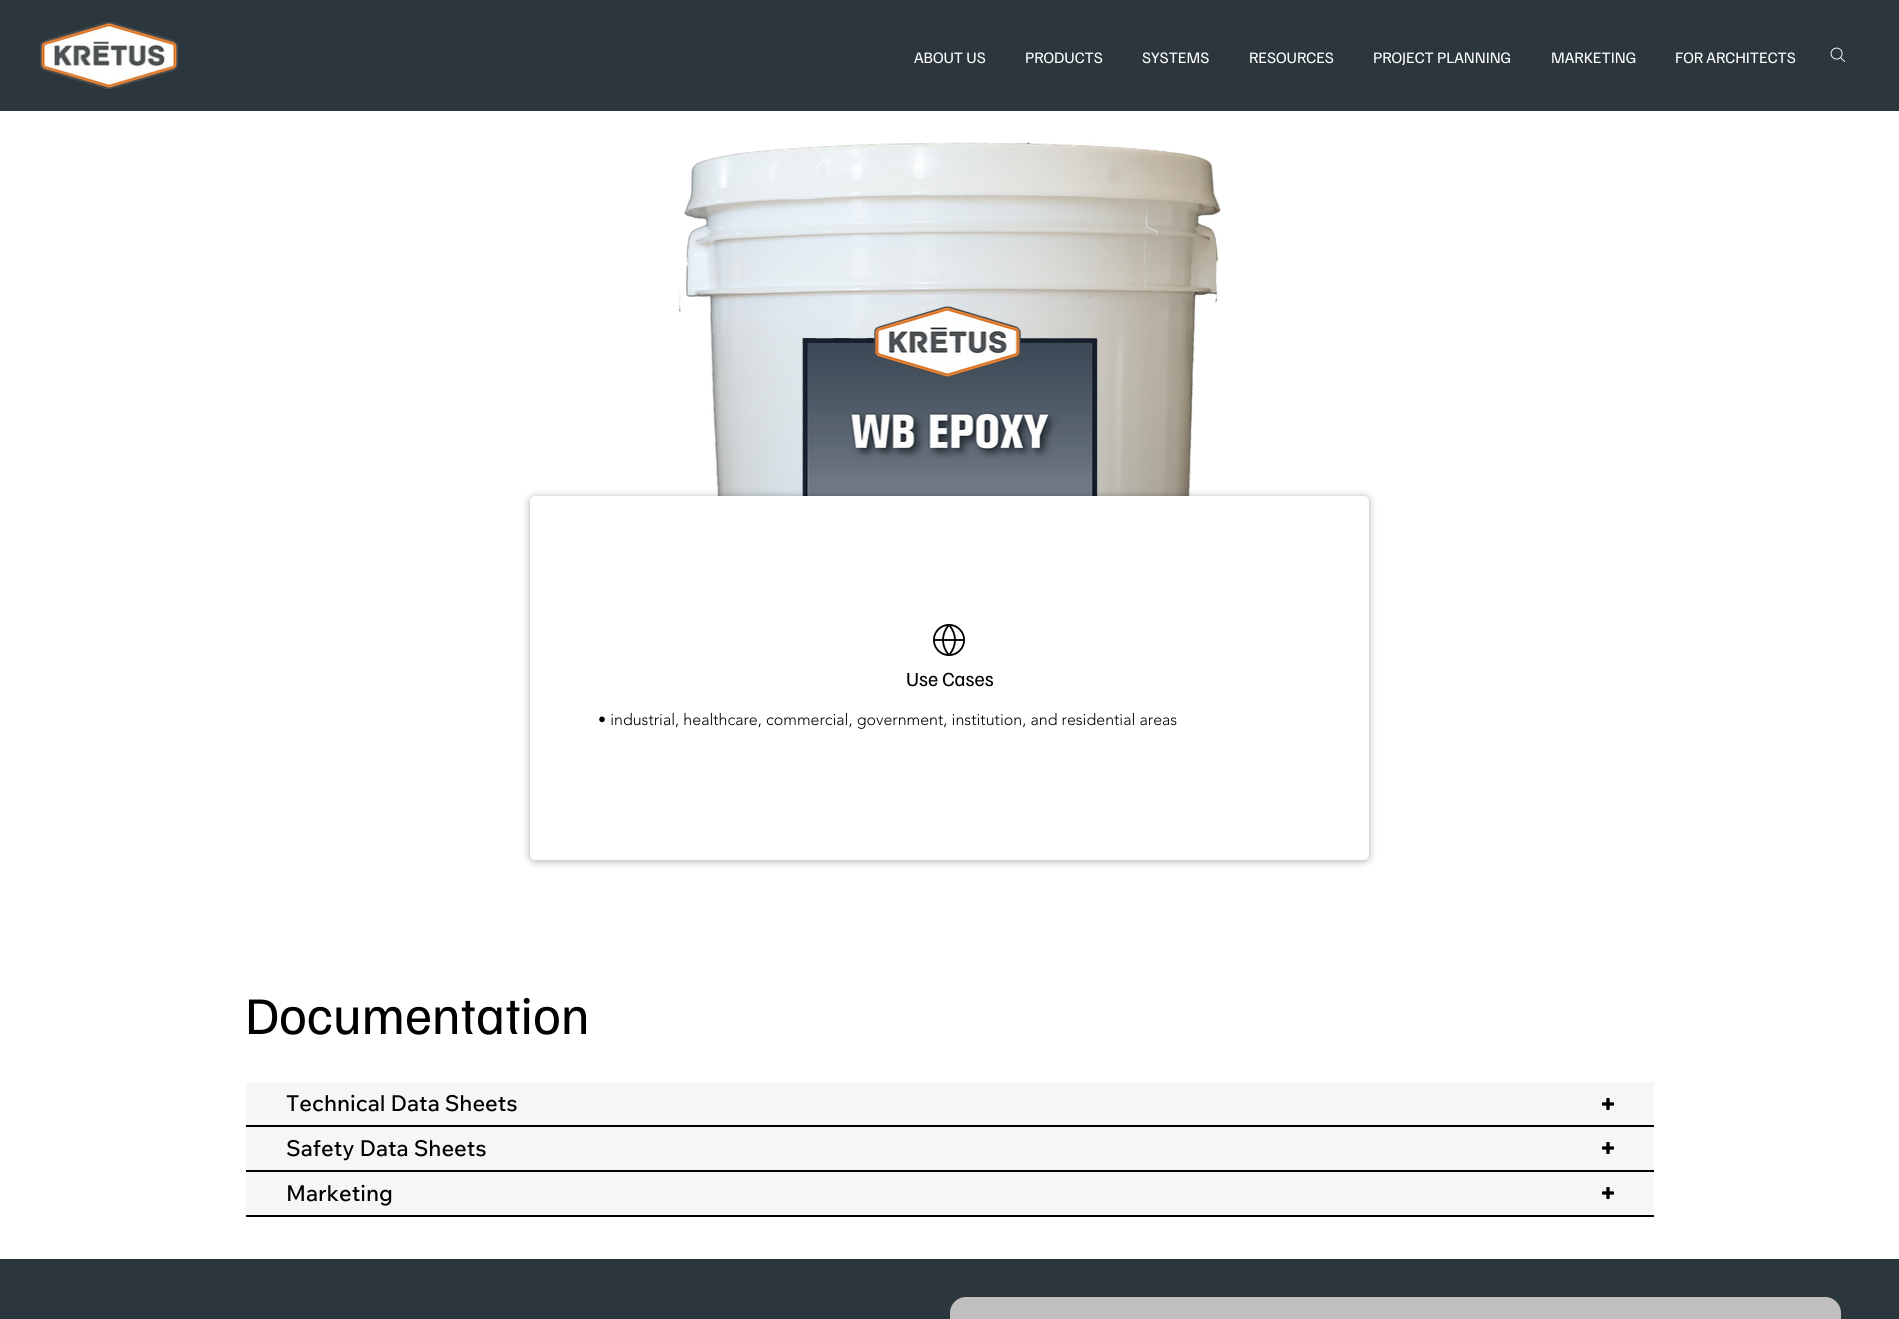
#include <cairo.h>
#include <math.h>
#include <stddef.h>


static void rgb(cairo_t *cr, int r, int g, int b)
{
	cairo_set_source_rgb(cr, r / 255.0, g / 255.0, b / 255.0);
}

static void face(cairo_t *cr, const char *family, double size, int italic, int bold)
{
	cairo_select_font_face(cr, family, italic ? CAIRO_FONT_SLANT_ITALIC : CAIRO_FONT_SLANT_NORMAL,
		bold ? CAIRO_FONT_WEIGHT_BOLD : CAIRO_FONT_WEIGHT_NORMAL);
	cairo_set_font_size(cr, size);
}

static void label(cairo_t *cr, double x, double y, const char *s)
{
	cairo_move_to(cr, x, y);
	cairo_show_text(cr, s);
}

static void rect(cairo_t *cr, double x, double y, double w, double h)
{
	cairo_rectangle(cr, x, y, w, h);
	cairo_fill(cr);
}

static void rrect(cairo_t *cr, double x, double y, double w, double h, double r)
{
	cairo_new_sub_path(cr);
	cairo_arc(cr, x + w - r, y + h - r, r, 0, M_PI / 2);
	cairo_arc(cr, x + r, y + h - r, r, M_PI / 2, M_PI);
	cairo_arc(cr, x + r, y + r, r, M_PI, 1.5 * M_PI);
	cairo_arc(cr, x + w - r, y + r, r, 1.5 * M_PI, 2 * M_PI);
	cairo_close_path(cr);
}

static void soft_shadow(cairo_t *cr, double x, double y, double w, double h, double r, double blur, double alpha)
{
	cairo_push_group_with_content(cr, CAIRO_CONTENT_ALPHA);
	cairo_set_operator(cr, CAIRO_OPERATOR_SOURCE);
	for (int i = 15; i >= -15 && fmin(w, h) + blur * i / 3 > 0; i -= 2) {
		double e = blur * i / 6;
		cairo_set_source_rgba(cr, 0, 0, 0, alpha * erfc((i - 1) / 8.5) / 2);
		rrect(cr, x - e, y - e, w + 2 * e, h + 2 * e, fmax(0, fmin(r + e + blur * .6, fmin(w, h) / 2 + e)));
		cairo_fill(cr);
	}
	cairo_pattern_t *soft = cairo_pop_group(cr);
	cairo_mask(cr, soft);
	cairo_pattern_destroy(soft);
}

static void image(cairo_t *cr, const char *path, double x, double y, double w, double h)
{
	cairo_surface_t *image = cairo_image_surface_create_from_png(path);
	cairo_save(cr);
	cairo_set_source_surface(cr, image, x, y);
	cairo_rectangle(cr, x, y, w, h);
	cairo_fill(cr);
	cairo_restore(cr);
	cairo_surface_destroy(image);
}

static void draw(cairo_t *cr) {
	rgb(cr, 255, 255, 255);
	cairo_paint(cr);
	rgb(cr, 44, 54, 61);
	rect(cr, 0, 0, 1899, 111);
	image(cr, "image0.png", 40, 22, 138, 67);
	face(cr, "Familjen Grotesk", 16, 0, 0);
	rgb(cr, 255, 255, 255);
	label(cr, 914, 63, "ABOUT US");
	label(cr, 1025, 63, "PRODUCTS");
	label(cr, 1142, 63, "SYSTEMS");
	label(cr, 1249, 63, "RESOURCES");
	label(cr, 1373, 63, "PROJECT PLANNING");
	label(cr, 1551, 63, "MARKETING");
	label(cr, 1675, 63, "FOR ARCHITECTS");
	image(cr, "image1.png", 1830, 47, 16, 16);
	image(cr, "image2.png", 678, 142, 543, 354);
	image(cr, "image3.png", 802, 306, 296, 190);
	rgb(cr, 0, 0, 0);
	soft_shadow(cr, 530, 497, 839, 364, 5, 4, 0.33);
	rgb(cr, 255, 255, 255);
	rrect(cr, 530, 496, 839, 364, 5);
	cairo_fill(cr);
	image(cr, "image4.png", 933, 624, 32, 32);
	face(cr, "Familjen Grotesk", 20, 0, 0);
	rgb(cr, 0, 0, 0);
	label(cr, 906, 686, "Use Cases");
	face(cr, "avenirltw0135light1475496 Light", 16, 0, 0);
	label(cr, 598, 725, "• industrial, healthcare, commercial, government, institution, and residential areas");
	face(cr, "Familjen Grotesk", 53, 0, 0);
	label(cr, 245, 1034, "Documentation");
	rect(cr, 246, 1125, 1408, 2);
	rgb(cr, 246, 246, 246);
	rect(cr, 246, 1082, 1408, 43);
	face(cr, "Wix Madefor Text Medium", 22, 0, 0);
	rgb(cr, 0, 0, 0);
	label(cr, 286, 1111, "Technical Data Sheets");
	image(cr, "image5.png", 1602, 1098, 12, 12);
	rect(cr, 246, 1170, 1408, 2);
	rgb(cr, 246, 246, 246);
	rect(cr, 246, 1127, 1408, 43);
	rgb(cr, 0, 0, 0);
	label(cr, 286, 1156, "Safety Data Sheets");
	image(cr, "image5.png", 1602, 1142, 12, 12);
	rect(cr, 246, 1215, 1408, 2);
	rgb(cr, 246, 246, 246);
	rect(cr, 246, 1172, 1408, 43);
	rgb(cr, 0, 0, 0);
	label(cr, 286, 1201, "Marketing");
	image(cr, "image5.png", 1602, 1187, 12, 12);
	rgb(cr, 44, 54, 61);
	rect(cr, 0, 1259, 1899, 60);
	rgb(cr, 191, 191, 191);
	rrect(cr, 950, 1297, 891, 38, 16);
	cairo_fill(cr);
}

int main(void) {
	cairo_surface_t *surface = cairo_image_surface_create(CAIRO_FORMAT_RGB24, 1899, 1319);
	cairo_t *cr = cairo_create(surface);
	cairo_font_options_t *options = cairo_font_options_create();
	cairo_font_options_set_hint_metrics(options, CAIRO_HINT_METRICS_OFF);
	cairo_font_options_set_hint_style(options, CAIRO_HINT_STYLE_NONE);
	cairo_set_font_options(cr, options);
	cairo_set_miter_limit(cr, 4);
	draw(cr);
	cairo_surface_write_to_png(surface, "render.png");
	cairo_font_options_destroy(options);
	cairo_destroy(cr);
	cairo_surface_destroy(surface);
	return 0;
}
